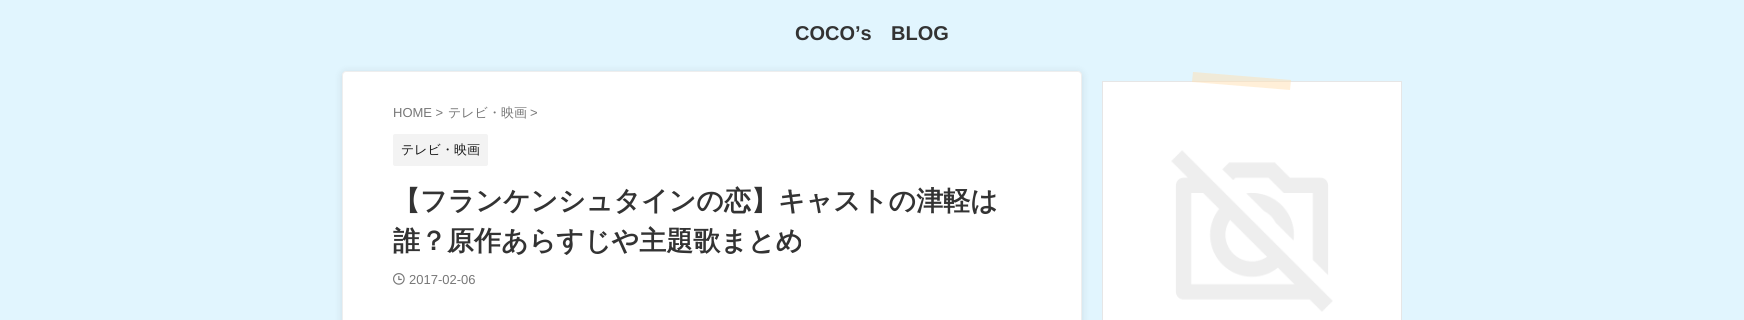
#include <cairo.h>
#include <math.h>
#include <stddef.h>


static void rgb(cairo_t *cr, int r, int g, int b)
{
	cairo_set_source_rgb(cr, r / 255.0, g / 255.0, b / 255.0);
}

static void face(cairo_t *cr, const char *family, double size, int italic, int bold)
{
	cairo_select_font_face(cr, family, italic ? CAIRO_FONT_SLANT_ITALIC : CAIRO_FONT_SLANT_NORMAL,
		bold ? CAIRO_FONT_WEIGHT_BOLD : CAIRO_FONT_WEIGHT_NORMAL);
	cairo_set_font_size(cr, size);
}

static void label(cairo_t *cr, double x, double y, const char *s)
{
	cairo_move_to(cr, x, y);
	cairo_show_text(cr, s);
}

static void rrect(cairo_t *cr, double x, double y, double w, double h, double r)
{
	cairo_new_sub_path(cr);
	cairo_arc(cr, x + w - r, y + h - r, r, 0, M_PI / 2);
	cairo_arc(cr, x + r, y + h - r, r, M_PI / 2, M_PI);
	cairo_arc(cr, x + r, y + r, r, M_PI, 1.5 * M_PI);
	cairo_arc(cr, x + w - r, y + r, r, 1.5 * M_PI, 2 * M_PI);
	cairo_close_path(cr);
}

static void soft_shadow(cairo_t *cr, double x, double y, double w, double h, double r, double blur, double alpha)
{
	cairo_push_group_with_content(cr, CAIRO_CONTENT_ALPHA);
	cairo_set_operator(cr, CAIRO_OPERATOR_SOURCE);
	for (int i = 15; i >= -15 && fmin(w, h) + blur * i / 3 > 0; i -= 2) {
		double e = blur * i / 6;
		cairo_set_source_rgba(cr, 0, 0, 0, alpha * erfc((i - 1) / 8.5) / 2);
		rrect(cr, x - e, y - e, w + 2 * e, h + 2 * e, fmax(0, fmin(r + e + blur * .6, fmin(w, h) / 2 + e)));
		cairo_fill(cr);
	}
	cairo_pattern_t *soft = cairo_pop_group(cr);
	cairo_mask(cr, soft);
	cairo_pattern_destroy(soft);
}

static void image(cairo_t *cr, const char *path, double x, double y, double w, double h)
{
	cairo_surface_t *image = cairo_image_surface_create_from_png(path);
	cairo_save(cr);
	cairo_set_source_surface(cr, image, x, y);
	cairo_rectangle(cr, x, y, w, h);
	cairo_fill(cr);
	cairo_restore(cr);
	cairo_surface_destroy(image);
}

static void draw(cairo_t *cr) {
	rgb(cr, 225, 245, 254);
	cairo_paint(cr);
	face(cr, "Liberation Sans", 20, 0, 1);
	rgb(cr, 51, 51, 51);
	label(cr, 795, 40, "COCO’s");
	label(cr, 891, 40, "BLOG");
	rgb(cr, 0, 0, 0);
	soft_shadow(cr, 342, 72, 740, 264, 4, 4, 0.1);
	rgb(cr, 255, 255, 255);
	rrect(cr, 342.5, 71.5, 739, 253, 3.5);
	cairo_fill_preserve(cr);
	rgb(cr, 238, 238, 238);
	cairo_set_line_width(cr, 1);
	cairo_stroke(cr);
	face(cr, "Liberation Sans", 13, 0, 0);
	rgb(cr, 119, 119, 119);
	label(cr, 393, 117, "HOME >");
	face(cr, "WenQuanYi Zen Hei Medium", 13, 0, 0);
	label(cr, 448, 117, "テレビ・映画");
	face(cr, "Liberation Sans", 13, 0, 0);
	label(cr, 530, 117, ">");
	rgb(cr, 243, 243, 243);
	rrect(cr, 393, 134, 95, 32, 2);
	cairo_fill(cr);
	face(cr, "WenQuanYi Zen Hei Medium", 13, 0, 0);
	rgb(cr, 26, 26, 26);
	label(cr, 401, 154, "テレビ・映画");
	face(cr, "WenQuanYi Zen Hei", 27, 0, 1);
	rgb(cr, 51, 51, 51);
	label(cr, 393, 210, "【フランケンシュタインの恋】キャストの津軽は");
	label(cr, 393, 250, "誰？原作あらすじや主題歌まとめ");
	image(cr, "image0.png", 393, 273, 12, 12);
	face(cr, "Liberation Sans", 13, 0, 0);
	rgb(cr, 119, 119, 119);
	label(cr, 409, 284, "2017-02-06");
	rgb(cr, 255, 255, 255);
	cairo_rectangle(cr, 1102.5, 81.5, 299, 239);
	cairo_fill_preserve(cr);
	rgb(cr, 230, 230, 230);
	cairo_stroke(cr);
	cairo_set_source_rgba(cr, 1, 0.878, 0.698, 0.5);
	cairo_new_path(cr);
	cairo_move_to(cr, 1193, 72);
	cairo_line_to(cr, 1291, 80);
	cairo_line_to(cr, 1290, 90);
	cairo_line_to(cr, 1192, 82);
	cairo_close_path(cr);
	cairo_fill(cr);
	image(cr, "image1.png", 1171, 150, 162, 162);
}

int main(void) {
	cairo_surface_t *surface = cairo_image_surface_create(CAIRO_FORMAT_RGB24, 1744, 320);
	cairo_t *cr = cairo_create(surface);
	cairo_font_options_t *options = cairo_font_options_create();
	cairo_font_options_set_hint_metrics(options, CAIRO_HINT_METRICS_OFF);
	cairo_font_options_set_hint_style(options, CAIRO_HINT_STYLE_NONE);
	cairo_set_font_options(cr, options);
	cairo_set_miter_limit(cr, 4);
	draw(cr);
	cairo_surface_write_to_png(surface, "render.png");
	cairo_font_options_destroy(options);
	cairo_destroy(cr);
	cairo_surface_destroy(surface);
	return 0;
}
